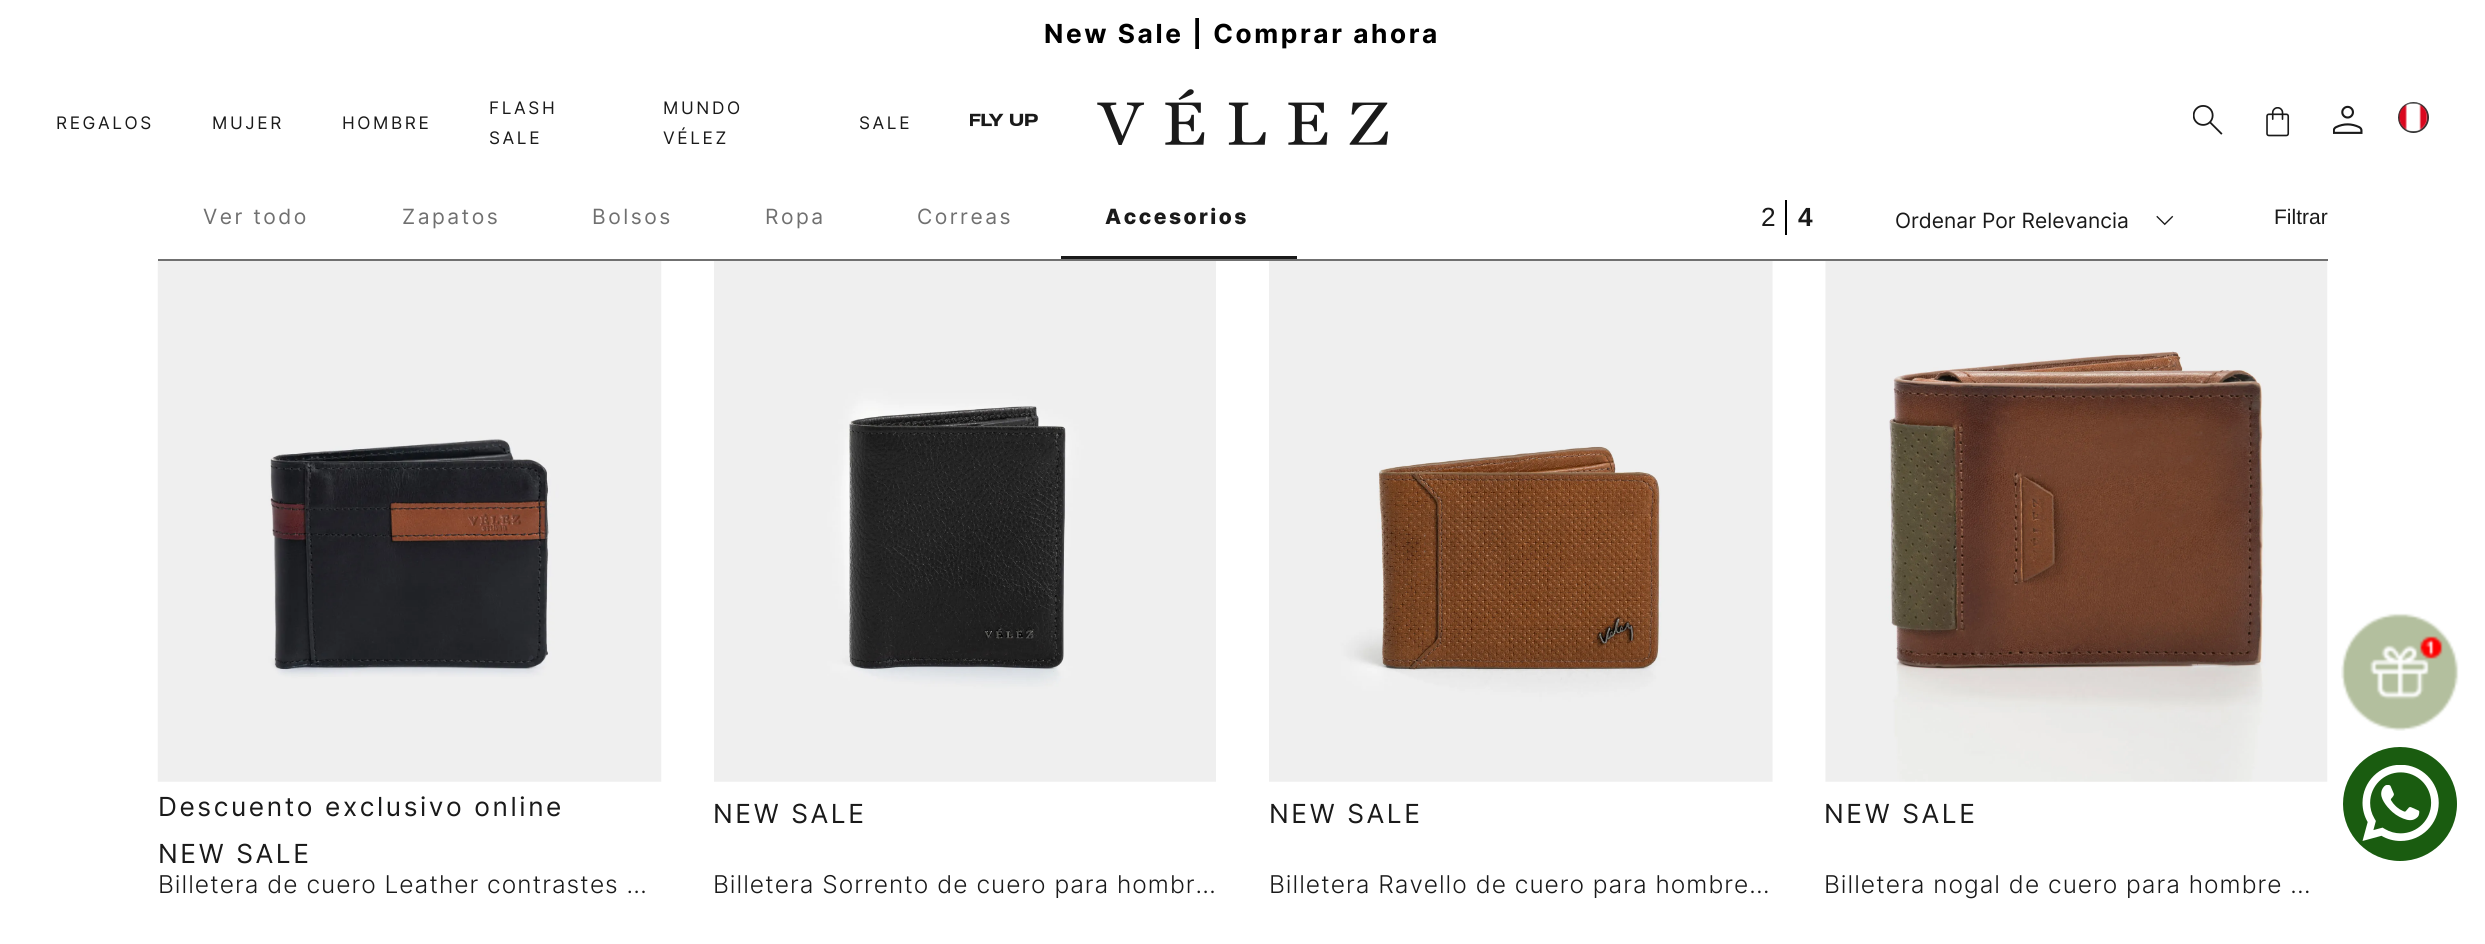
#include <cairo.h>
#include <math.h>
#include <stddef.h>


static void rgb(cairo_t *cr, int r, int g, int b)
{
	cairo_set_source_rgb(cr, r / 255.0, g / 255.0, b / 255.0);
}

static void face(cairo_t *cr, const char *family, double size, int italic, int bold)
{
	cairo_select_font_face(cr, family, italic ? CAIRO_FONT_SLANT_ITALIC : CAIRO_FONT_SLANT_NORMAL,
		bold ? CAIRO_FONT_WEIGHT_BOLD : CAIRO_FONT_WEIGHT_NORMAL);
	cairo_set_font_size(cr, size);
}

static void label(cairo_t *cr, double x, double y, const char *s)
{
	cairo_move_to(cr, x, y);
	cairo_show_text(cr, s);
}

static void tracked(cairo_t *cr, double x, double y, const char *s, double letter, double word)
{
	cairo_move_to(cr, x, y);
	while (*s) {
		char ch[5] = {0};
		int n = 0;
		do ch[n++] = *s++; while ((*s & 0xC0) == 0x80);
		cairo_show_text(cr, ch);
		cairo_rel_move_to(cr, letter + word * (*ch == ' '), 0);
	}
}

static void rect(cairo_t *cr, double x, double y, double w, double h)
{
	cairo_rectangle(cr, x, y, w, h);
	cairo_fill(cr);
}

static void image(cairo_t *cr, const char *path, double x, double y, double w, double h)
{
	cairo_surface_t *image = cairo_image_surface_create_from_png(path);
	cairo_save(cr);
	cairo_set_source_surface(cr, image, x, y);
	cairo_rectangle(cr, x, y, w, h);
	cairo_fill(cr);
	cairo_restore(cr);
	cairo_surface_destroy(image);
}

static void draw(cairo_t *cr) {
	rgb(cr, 255, 255, 255);
	cairo_paint(cr);
	cairo_save(cr);
	cairo_rectangle(cr, 0, 18, 2485, 31);
	cairo_clip(cr);
	face(cr, "Inter", 26.25, 0, 1);
	rgb(cr, 0, 0, 0);
	tracked(cr, 1044, 43, "New Sale | Comprar ahora", 2.6, 0);
	cairo_restore(cr);
	face(cr, "Inter", 17.25, 0, 0);
	rgb(cr, 26, 26, 26);
	tracked(cr, 56, 129, "REGALOS", 2.6, 0);
	tracked(cr, 212, 129, "MUJER", 2.6, 0);
	tracked(cr, 342, 129, "HOMBRE", 2.6, 0);
	tracked(cr, 489, 114, "FLASH", 2.6, 0);
	tracked(cr, 489, 144, "SALE", 2.6, 0);
	tracked(cr, 663, 114, "MUNDO", 2.6, 0);
	tracked(cr, 663, 144, "VÉLEZ", 2.6, 0);
	tracked(cr, 859, 129, "SALE", 2.6, 0);
	image(cr, "image0.png", 970, 113, 68, 14);
	image(cr, "image1.png", 1097, 89, 292, 56);
	image(cr, "image2.png", 2193, 105, 30, 30);
	image(cr, "image3.png", 2266, 107, 24, 30);
	image(cr, "image4.png", 2333, 105, 30, 29);
	cairo_arc(cr, 2413.5, 117.5, 14.5, 0, 2 * M_PI);
	rgb(cr, 51, 51, 51);
	cairo_stroke(cr);
	image(cr, "image5.png", 2398, 102, 30, 30);
	face(cr, "Inter", 21, 0, 0);
	rgb(cr, 112, 112, 112);
	tracked(cr, 203, 224, "Ver todo", 2.5, 0);
	tracked(cr, 402, 224, "Zapatos", 2.5, 0);
	tracked(cr, 592, 224, "Bolsos", 2.5, 0);
	tracked(cr, 765, 224, "Ropa", 2.5, 0);
	tracked(cr, 917, 224, "Correas", 2.5, 0);
	face(cr, "Inter ExtraBold", 21, 0, 0);
	rgb(cr, 26, 26, 26);
	tracked(cr, 1105, 224, "Accesorios", 2.5, 0);
	rect(cr, 1061, 256, 236, 3);
	face(cr, "Liberation Sans", 26.25, 0, 0);
	label(cr, 1761, 226, "2");
	rgb(cr, 0, 0, 0);
	rect(cr, 1785, 200, 2, 35);
	face(cr, "Liberation Sans", 26.25, 0, 1);
	rgb(cr, 26, 26, 26);
	label(cr, 1798, 226, "4");
	face(cr, "Inter", 21, 0, 0);
	label(cr, 1895, 228, "Ordenar Por Relevancia");
	image(cr, "image6.png", 2156, 215, 18, 11);
	face(cr, "Liberation Sans", 21, 0, 0);
	label(cr, 2274, 224, "Filtrar");
	rgb(cr, 112, 112, 112);
	rect(cr, 158, 259, 2170, 2);
	image(cr, "image7.png", 157, 261, 505, 521);
	face(cr, "Inter", 26.25, 0, 0);
	rgb(cr, 26, 26, 26);
	tracked(cr, 158, 816, "Descuento exclusivo online", 2.6, 0);
	tracked(cr, 158, 863, "NEW SALE", 2.6, 0);
	face(cr, "Inter Light", 24.5, 0, 0);
	tracked(cr, 158, 893, "Billetera de cuero Leather contrastes …", 1, 0);
	image(cr, "image8.png", 714, 261, 502, 521);
	face(cr, "Inter", 26.25, 0, 0);
	tracked(cr, 713, 823, "NEW SALE", 2.6, 0);
	face(cr, "Inter Light", 24.5, 0, 0);
	tracked(cr, 713, 893, "Billetera Sorrento de cuero para hombr…", 1, 0);
	image(cr, "image9.png", 1269, 261, 504, 521);
	face(cr, "Inter", 26.25, 0, 0);
	tracked(cr, 1269, 823, "NEW SALE", 2.6, 0);
	face(cr, "Inter Light", 24.5, 0, 0);
	tracked(cr, 1269, 893, "Billetera Ravello de cuero para hombre…", 1, 0);
	image(cr, "image10.png", 1825, 261, 503, 521);
	face(cr, "Inter", 26.25, 0, 0);
	tracked(cr, 1824, 823, "NEW SALE", 2.6, 0);
	face(cr, "Inter Light", 24.5, 0, 0);
	tracked(cr, 1824, 893, "Billetera nogal de cuero para hombre …", 1, 0);
	image(cr, "image11.png", 2341, 613, 118, 118);
	rgb(cr, 26, 92, 16);
	cairo_arc(cr, 2400, 804, 57, 0, 2 * M_PI);
	cairo_fill(cr);
	image(cr, "image12.png", 2362, 765, 77, 76);
}

int main(void) {
	cairo_surface_t *surface = cairo_image_surface_create(CAIRO_FORMAT_RGB24, 2485, 944);
	cairo_t *cr = cairo_create(surface);
	cairo_font_options_t *options = cairo_font_options_create();
	cairo_font_options_set_hint_metrics(options, CAIRO_HINT_METRICS_OFF);
	cairo_font_options_set_hint_style(options, CAIRO_HINT_STYLE_NONE);
	cairo_set_font_options(cr, options);
	cairo_set_miter_limit(cr, 4);
	draw(cr);
	cairo_surface_write_to_png(surface, "render.png");
	cairo_font_options_destroy(options);
	cairo_destroy(cr);
	cairo_surface_destroy(surface);
	return 0;
}
